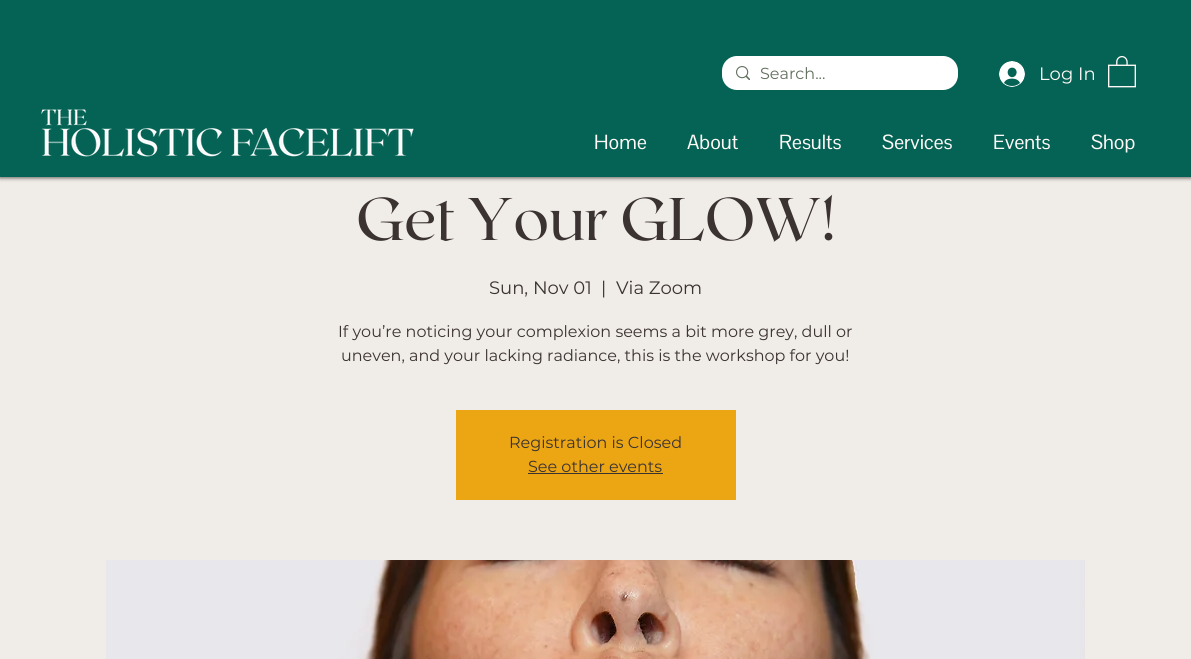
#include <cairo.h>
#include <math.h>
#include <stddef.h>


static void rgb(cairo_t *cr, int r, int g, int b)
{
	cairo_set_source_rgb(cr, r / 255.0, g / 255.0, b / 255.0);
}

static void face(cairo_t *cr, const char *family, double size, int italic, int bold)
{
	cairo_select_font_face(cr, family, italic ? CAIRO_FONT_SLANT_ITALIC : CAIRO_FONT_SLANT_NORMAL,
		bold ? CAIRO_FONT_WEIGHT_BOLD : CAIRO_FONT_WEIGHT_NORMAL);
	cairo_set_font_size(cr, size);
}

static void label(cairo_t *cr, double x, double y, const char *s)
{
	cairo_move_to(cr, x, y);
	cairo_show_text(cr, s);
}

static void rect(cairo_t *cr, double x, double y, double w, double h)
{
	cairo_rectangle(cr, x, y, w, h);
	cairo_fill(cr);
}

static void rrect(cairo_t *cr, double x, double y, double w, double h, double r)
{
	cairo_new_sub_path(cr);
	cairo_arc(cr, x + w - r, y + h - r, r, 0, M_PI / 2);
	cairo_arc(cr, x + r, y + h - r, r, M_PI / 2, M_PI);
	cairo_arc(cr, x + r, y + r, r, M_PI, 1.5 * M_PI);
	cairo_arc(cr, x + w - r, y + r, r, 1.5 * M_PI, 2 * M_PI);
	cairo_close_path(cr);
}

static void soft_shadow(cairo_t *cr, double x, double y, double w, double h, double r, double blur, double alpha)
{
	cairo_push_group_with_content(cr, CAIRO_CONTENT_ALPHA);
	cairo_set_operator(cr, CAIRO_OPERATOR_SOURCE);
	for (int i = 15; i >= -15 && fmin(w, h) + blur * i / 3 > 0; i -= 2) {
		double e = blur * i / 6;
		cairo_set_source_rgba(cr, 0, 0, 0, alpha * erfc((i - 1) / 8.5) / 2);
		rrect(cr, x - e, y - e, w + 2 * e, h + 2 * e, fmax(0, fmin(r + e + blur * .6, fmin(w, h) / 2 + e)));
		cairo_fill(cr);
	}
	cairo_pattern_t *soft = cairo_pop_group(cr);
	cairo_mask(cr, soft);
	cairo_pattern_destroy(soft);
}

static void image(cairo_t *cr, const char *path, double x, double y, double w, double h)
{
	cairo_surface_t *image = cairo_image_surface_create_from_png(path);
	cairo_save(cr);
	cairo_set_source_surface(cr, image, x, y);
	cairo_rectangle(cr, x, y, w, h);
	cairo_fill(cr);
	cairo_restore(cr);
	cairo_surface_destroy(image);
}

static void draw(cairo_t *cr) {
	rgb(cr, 240, 236, 231);
	cairo_paint(cr);
	rgb(cr, 0, 0, 0);
	soft_shadow(cr, 0, 1, 1191, 177, 0, 2, 0.6);
	rgb(cr, 4, 99, 84);
	rect(cr, 0, 0, 1191, 177);
	image(cr, "image0.png", 41, 109, 373, 48);
	rgb(cr, 255, 255, 255);
	rrect(cr, 722, 56, 236, 34, 15);
	cairo_fill(cr);
	image(cr, "image1.png", 736, 66, 14, 14);
	face(cr, "Montserrat", 16, 0, 0);
	rgb(cr, 98, 111, 94);
	label(cr, 760, 79, "Search...");
	image(cr, "image2.png", 999, 61, 26, 26);
	face(cr, "Montserrat", 18, 0, 0);
	rgb(cr, 255, 249, 247);
	label(cr, 1039, 80, "Log In");
	image(cr, "image3.png", 1108, 56, 28, 32);
	face(cr, "Pontano Sans", 20, 0, 0);
	label(cr, 594, 149, "Home");
	label(cr, 687, 149, "About");
	label(cr, 779, 149, "Results");
	label(cr, 882, 149, "Services");
	label(cr, 993, 149, "Events");
	label(cr, 1091, 149, "Shop");
	face(cr, "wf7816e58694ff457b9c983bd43", 60, 0, 0);
	rgb(cr, 59, 50, 50);
	label(cr, 356, 240, "Get Your GLOW!");
	face(cr, "Montserrat", 18, 0, 0);
	label(cr, 489, 294, "Sun, Nov 01");
	label(cr, 601, 294, "|");
	label(cr, 616, 294, "Via Zoom");
	face(cr, "Montserrat", 16, 0, 0);
	label(cr, 338, 337, "If you’re noticing your complexion seems a bit more grey, dull or");
	label(cr, 341, 361, "uneven, and your lacking radiance, this is the workshop for you!");
	rgb(cr, 236, 166, 19);
	rect(cr, 456, 410, 280, 90);
	rgb(cr, 59, 50, 50);
	label(cr, 509, 448, "Registration is Closed");
	label(cr, 528, 472, "See other events");
	rect(cr, 528, 473, 135, 1);
	image(cr, "image4.png", 106, 560, 979, 99);
}

int main(void) {
	cairo_surface_t *surface = cairo_image_surface_create(CAIRO_FORMAT_RGB24, 1191, 659);
	cairo_t *cr = cairo_create(surface);
	cairo_font_options_t *options = cairo_font_options_create();
	cairo_font_options_set_hint_metrics(options, CAIRO_HINT_METRICS_OFF);
	cairo_font_options_set_hint_style(options, CAIRO_HINT_STYLE_NONE);
	cairo_set_font_options(cr, options);
	cairo_set_miter_limit(cr, 4);
	draw(cr);
	cairo_surface_write_to_png(surface, "render.png");
	cairo_font_options_destroy(options);
	cairo_destroy(cr);
	cairo_surface_destroy(surface);
	return 0;
}
